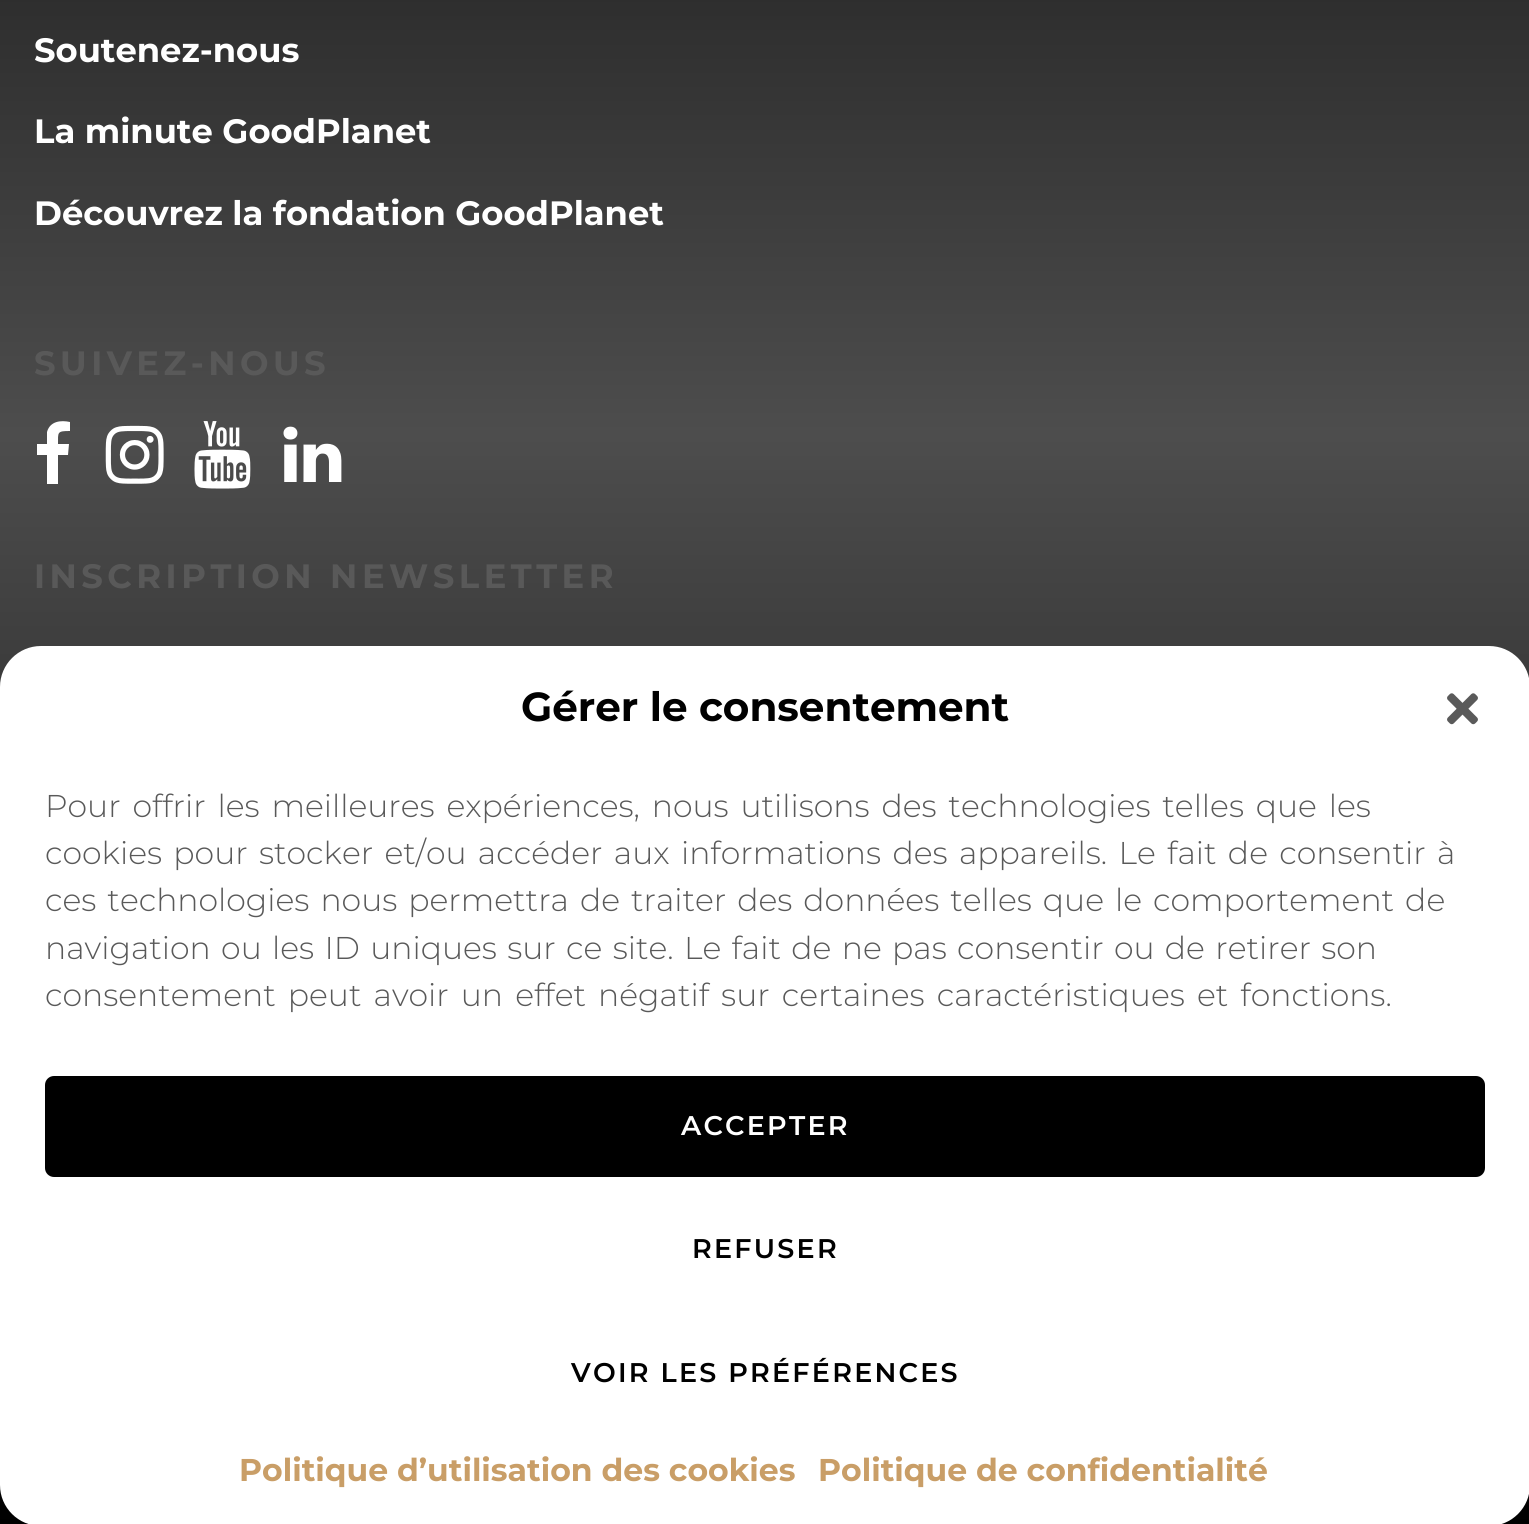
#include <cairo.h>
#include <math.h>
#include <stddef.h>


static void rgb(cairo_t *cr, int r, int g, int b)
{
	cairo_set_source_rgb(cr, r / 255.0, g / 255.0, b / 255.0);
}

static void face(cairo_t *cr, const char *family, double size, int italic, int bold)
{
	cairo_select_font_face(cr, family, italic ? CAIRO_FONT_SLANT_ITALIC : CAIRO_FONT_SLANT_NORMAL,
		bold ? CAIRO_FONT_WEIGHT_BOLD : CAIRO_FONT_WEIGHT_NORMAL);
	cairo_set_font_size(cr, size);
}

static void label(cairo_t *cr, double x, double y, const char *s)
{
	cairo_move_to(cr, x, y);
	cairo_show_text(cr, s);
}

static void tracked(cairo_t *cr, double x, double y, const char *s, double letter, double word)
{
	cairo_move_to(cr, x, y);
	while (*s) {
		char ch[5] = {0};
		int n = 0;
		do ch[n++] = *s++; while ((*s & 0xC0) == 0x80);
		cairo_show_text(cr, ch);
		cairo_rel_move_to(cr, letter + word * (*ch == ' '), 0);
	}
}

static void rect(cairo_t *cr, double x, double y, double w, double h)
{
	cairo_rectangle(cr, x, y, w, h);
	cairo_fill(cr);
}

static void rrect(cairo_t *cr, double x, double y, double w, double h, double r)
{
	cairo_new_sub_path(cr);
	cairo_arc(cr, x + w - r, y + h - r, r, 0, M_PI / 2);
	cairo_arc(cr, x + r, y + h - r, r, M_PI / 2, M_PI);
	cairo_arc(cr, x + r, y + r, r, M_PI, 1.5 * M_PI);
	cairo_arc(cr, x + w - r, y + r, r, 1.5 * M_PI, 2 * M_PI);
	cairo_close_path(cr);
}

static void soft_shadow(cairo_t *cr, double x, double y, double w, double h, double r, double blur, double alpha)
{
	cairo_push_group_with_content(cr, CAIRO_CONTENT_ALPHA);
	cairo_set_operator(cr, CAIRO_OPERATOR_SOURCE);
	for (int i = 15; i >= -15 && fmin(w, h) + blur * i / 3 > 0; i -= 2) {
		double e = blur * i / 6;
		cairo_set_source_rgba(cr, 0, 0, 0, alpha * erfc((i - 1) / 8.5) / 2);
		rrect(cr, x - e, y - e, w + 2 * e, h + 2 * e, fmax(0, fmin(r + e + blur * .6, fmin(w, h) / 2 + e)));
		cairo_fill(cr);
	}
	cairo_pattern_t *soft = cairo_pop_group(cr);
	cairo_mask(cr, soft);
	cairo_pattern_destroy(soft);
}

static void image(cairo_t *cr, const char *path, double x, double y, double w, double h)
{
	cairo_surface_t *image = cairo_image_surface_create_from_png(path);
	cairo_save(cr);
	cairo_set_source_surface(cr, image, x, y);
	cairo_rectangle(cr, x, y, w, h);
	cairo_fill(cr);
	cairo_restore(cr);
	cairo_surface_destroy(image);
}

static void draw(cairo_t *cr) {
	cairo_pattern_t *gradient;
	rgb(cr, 255, 255, 255);
	cairo_paint(cr);
	gradient = cairo_pattern_create_linear(765, -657, 765, 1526);
	cairo_pattern_add_color_stop_rgba(gradient, 0, 0, 0, 0, 1);
	cairo_pattern_add_color_stop_rgba(gradient, 0.5, 0.302, 0.302, 0.302, 1);
	cairo_pattern_add_color_stop_rgba(gradient, 1, 0, 0, 0, 1);
	cairo_set_source(cr, gradient);
	cairo_pattern_destroy(gradient);
	rect(cr, 0, 0, 1529, 1524);
	face(cr, "Montserrat", 33.75, 0, 1);
	rgb(cr, 255, 255, 255);
	label(cr, 34, 62, "Soutenez-nous");
	label(cr, 34, 143, "La minute GoodPlanet");
	label(cr, 34, 225, "Découvrez la fondation GoodPlanet");
	rgb(cr, 89, 89, 89);
	tracked(cr, 34, 375, "SUIVEZ-NOUS", 4.5, 0);
	rgb(cr, 255, 255, 255);
	cairo_new_path(cr);
	cairo_move_to(cr, 70, 422);
	cairo_line_to(cr, 70, 431);
	cairo_curve_to(cr, 57, 431, 58, 432, 58, 444);
	cairo_line_to(cr, 69, 444);
	cairo_line_to(cr, 68, 455);
	cairo_line_to(cr, 58, 455);
	cairo_line_to(cr, 58, 484);
	cairo_line_to(cr, 47, 484);
	cairo_line_to(cr, 47, 455);
	cairo_line_to(cr, 37, 455);
	cairo_line_to(cr, 37, 444);
	cairo_line_to(cr, 47, 444);
	cairo_line_to(cr, 47, 432);
	cairo_curve_to(cr, 50, 421, 61, 420, 70, 422);
	cairo_close_path(cr);
	cairo_fill(cr);
	image(cr, "image0.png", 105, 425, 59, 59);
	image(cr, "image1.png", 194, 421, 57, 68);
	image(cr, "image2.png", 283, 426, 59, 56);
	rgb(cr, 89, 89, 89);
	tracked(cr, 34, 588, "INSCRIPTION NEWSLETTER", 4.5, 0);
	rgb(cr, 0, 0, 0);
	soft_shadow(cr, 0, 659, 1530, 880, 41, 7, 0.23);
	rgb(cr, 255, 255, 255);
	rrect(cr, 0, 646, 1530, 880, 41);
	cairo_fill(cr);
	face(cr, "Montserrat", 40.5, 0, 1);
	rgb(cr, 0, 0, 0);
	label(cr, 521, 721, "Gérer le consentement");
	image(cr, "image3.png", 1447, 693, 31, 32);
	face(cr, "Montserrat Light", 31.5, 0, 0);
	rgb(cr, 89, 89, 89);
	tracked(cr, 45, 817, "Pour offrir les meilleures expériences, nous utilisons des technologies telles que les", 0, 3.75);
	tracked(cr, 45, 864, "cookies pour stocker et/ou accéder aux informations des appareils. Le fait de consentir à", 0, 3.25);
	tracked(cr, 45, 911, "ces technologies nous permettra de traiter des données telles que le comportement de", 0, 2.9);
	tracked(cr, 45, 959, "navigation ou les ID uniques sur ce site. Le fait de ne pas consentir ou de retirer son", 0, 2.25);
	tracked(cr, 45, 1006, "consentement peut avoir un effet négatif sur certaines caractéristiques et fonctions.", 0, 4);
	rgb(cr, 0, 0, 0);
	rrect(cr, 46, 1077, 1438, 99, 8);
	cairo_fill_preserve(cr);
	cairo_stroke(cr);
	face(cr, "Montserrat SemiBold", 27, 0, 0);
	rgb(cr, 255, 255, 255);
	tracked(cr, 681, 1135, "ACCEPTER", 2.25, 0);
	rgb(cr, 0, 0, 0);
	tracked(cr, 692, 1258, "REFUSER", 2.25, 0);
	tracked(cr, 571, 1382, "VOIR LES PRÉFÉRENCES", 2.25, 0);
	face(cr, "Montserrat", 31.5, 0, 1);
	rgb(cr, 201, 158, 103);
	label(cr, 239, 1481, "Politique d’utilisation des cookies");
	label(cr, 818, 1481, "Politique de confidentialité");
}

int main(void) {
	cairo_surface_t *surface = cairo_image_surface_create(CAIRO_FORMAT_RGB24, 1529, 1524);
	cairo_t *cr = cairo_create(surface);
	cairo_font_options_t *options = cairo_font_options_create();
	cairo_font_options_set_hint_metrics(options, CAIRO_HINT_METRICS_OFF);
	cairo_font_options_set_hint_style(options, CAIRO_HINT_STYLE_NONE);
	cairo_set_font_options(cr, options);
	cairo_set_miter_limit(cr, 4);
	draw(cr);
	cairo_surface_write_to_png(surface, "render.png");
	cairo_font_options_destroy(options);
	cairo_destroy(cr);
	cairo_surface_destroy(surface);
	return 0;
}
